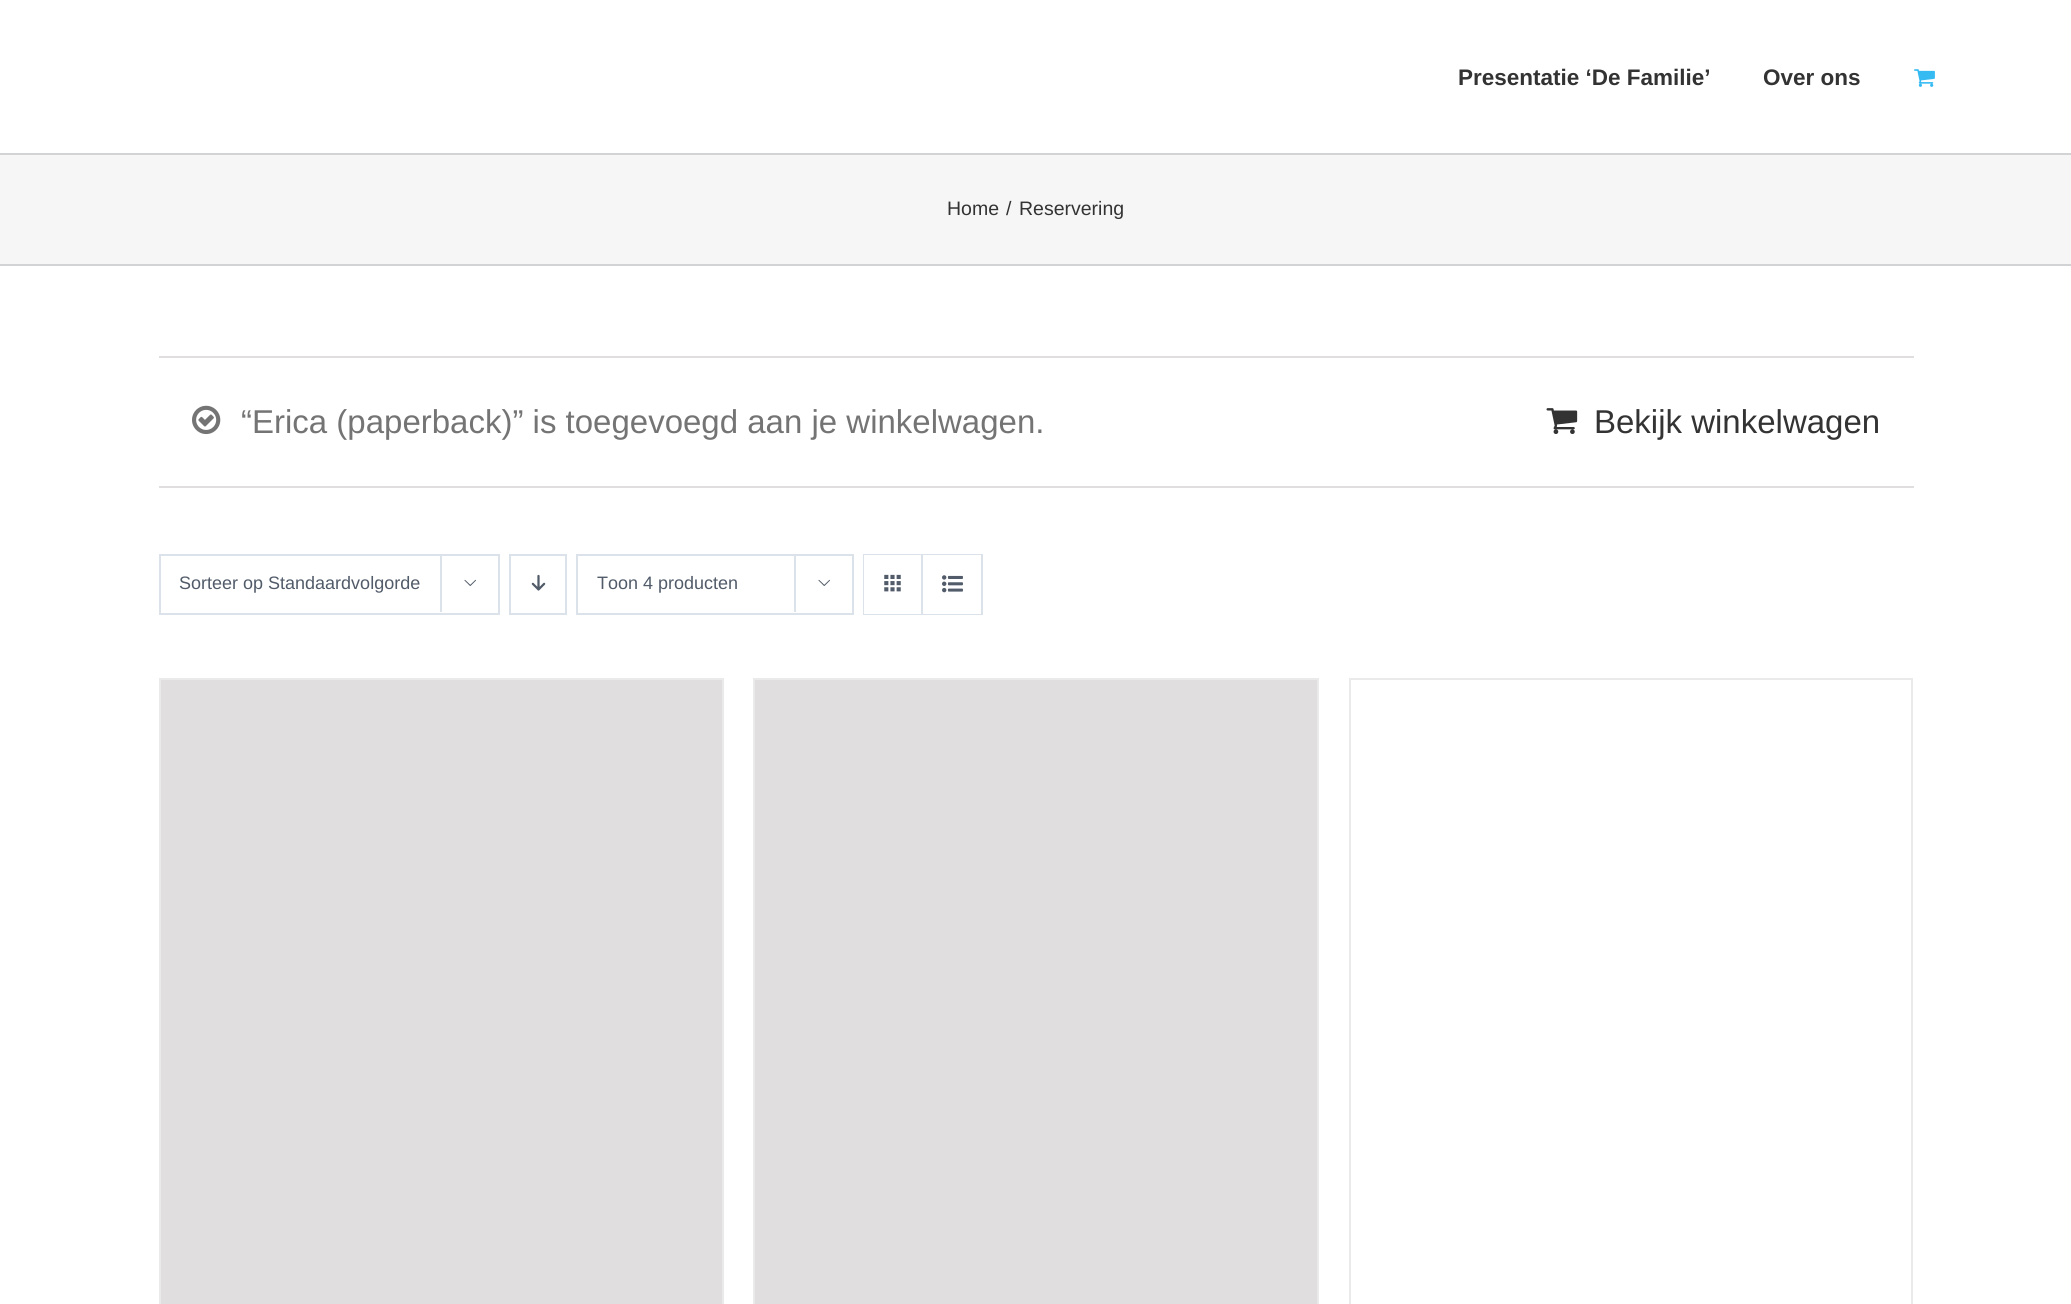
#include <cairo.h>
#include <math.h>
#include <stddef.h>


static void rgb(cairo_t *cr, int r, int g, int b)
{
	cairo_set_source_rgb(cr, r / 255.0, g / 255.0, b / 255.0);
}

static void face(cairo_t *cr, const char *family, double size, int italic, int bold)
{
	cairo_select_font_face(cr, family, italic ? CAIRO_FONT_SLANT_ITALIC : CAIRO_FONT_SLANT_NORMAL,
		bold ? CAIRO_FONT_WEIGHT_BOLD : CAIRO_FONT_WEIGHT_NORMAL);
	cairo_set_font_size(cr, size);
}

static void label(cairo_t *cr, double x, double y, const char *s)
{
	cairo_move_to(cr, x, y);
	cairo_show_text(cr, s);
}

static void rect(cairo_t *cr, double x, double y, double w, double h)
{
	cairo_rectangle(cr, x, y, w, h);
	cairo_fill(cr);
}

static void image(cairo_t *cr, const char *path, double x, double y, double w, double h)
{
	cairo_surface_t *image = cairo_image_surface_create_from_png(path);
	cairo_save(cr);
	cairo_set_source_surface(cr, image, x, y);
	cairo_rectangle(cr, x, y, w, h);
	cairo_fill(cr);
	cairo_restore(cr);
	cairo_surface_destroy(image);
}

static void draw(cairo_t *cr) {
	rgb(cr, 255, 255, 255);
	cairo_paint(cr);
	face(cr, "Liberation Sans", 22.5, 0, 1);
	rgb(cr, 51, 51, 51);
	label(cr, 1458, 85, "Presentatie ‘De Familie’");
	label(cr, 1763, 85, "Over ons");
	image(cr, "image0.png", 1914, 69, 21, 18);
	rgb(cr, 246, 246, 246);
	rect(cr, 0, 155, 2071, 109);
	rgb(cr, 210, 211, 212);
	rect(cr, 0, 153, 2071, 2);
	rect(cr, 0, 264, 2071, 2);
	face(cr, "Liberation Sans", 19.5, 0, 0);
	rgb(cr, 51, 51, 51);
	label(cr, 947, 215, "Home");
	label(cr, 1006, 215, "/");
	label(cr, 1019, 215, "Reservering");
	rgb(cr, 224, 222, 222);
	rect(cr, 159, 356, 1755, 2);
	rect(cr, 159, 486, 1755, 2);
	image(cr, "image1.png", 192, 405, 29, 30);
	face(cr, "Liberation Sans", 33, 0, 0);
	rgb(cr, 116, 116, 116);
	label(cr, 241, 433, "“Erica (paperback)” is toegevoegd aan je winkelwagen.");
	image(cr, "image2.png", 1546, 408, 32, 26);
	rgb(cr, 51, 51, 51);
	label(cr, 1594, 433, "Bekijk winkelwagen");
	cairo_rectangle(cr, 160, 555, 339, 59);
	rgb(cr, 219, 226, 234);
	cairo_stroke(cr);
	face(cr, "Liberation Sans", 18, 0, 0);
	rgb(cr, 81, 91, 105);
	label(cr, 179, 589, "Sorteer op Standaardvolgorde");
	rgb(cr, 219, 226, 234);
	rect(cr, 440, 554, 2, 58);
	image(cr, "image3.png", 464, 579, 12, 7);
	cairo_rectangle(cr, 510, 555, 56, 59);
	cairo_stroke(cr);
	image(cr, "image4.png", 531, 574, 15, 17);
	cairo_rectangle(cr, 577, 555, 276, 59);
	cairo_stroke(cr);
	rgb(cr, 81, 91, 105);
	label(cr, 597, 589, "Toon 4 producten");
	rgb(cr, 219, 226, 234);
	rect(cr, 794, 554, 2, 58);
	image(cr, "image3.png", 818, 579, 12, 7);
	cairo_rectangle(cr, 864, 555, 118, 59);
	cairo_stroke(cr);
	rgb(cr, 255, 255, 255);
	rect(cr, 864, 555, 57, 59);
	rgb(cr, 219, 226, 234);
	rect(cr, 921, 555, 2, 59);
	image(cr, "image5.png", 884, 574, 17, 18);
	rgb(cr, 255, 255, 255);
	rect(cr, 923, 555, 58, 59);
	image(cr, "image6.png", 942, 575, 21, 18);
	rgb(cr, 235, 234, 234);
	rect(cr, 159, 678, 564, 2);
	rect(cr, 722, 678, 2, 626);
	rect(cr, 159, 678, 2, 626);
	rgb(cr, 224, 222, 222);
	rect(cr, 161, 680, 561, 624);
	rgb(cr, 235, 234, 234);
	rect(cr, 753, 678, 566, 2);
	rect(cr, 1317, 678, 2, 626);
	rect(cr, 753, 678, 2, 626);
	rgb(cr, 224, 222, 222);
	rect(cr, 755, 680, 562, 624);
	rgb(cr, 235, 234, 234);
	rect(cr, 1349, 678, 564, 2);
	rect(cr, 1911, 678, 2, 626);
	rect(cr, 1349, 678, 2, 626);
}

int main(void) {
	cairo_surface_t *surface = cairo_image_surface_create(CAIRO_FORMAT_RGB24, 2071, 1304);
	cairo_t *cr = cairo_create(surface);
	cairo_font_options_t *options = cairo_font_options_create();
	cairo_font_options_set_hint_metrics(options, CAIRO_HINT_METRICS_OFF);
	cairo_font_options_set_hint_style(options, CAIRO_HINT_STYLE_NONE);
	cairo_set_font_options(cr, options);
	cairo_set_miter_limit(cr, 4);
	draw(cr);
	cairo_surface_write_to_png(surface, "render.png");
	cairo_font_options_destroy(options);
	cairo_destroy(cr);
	cairo_surface_destroy(surface);
	return 0;
}
